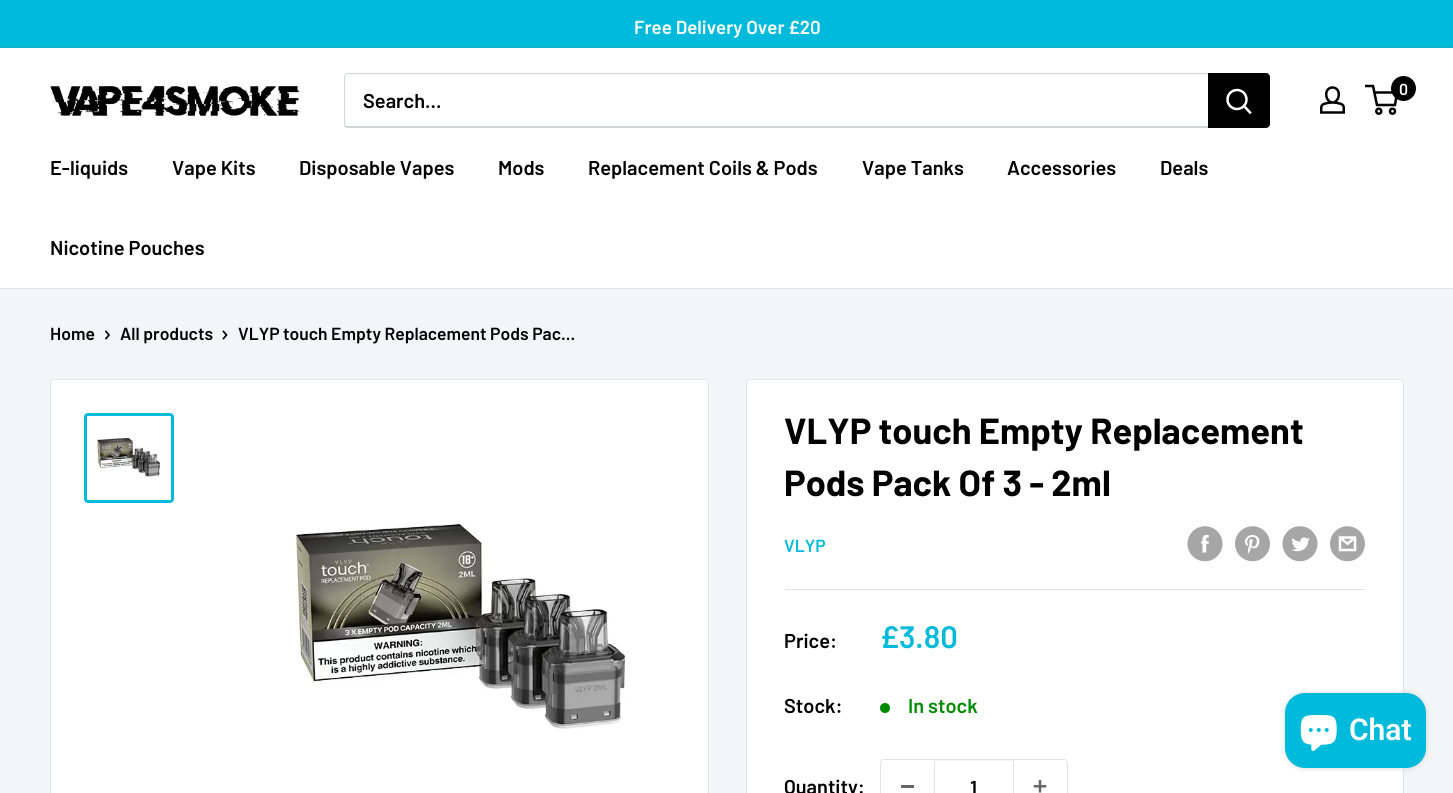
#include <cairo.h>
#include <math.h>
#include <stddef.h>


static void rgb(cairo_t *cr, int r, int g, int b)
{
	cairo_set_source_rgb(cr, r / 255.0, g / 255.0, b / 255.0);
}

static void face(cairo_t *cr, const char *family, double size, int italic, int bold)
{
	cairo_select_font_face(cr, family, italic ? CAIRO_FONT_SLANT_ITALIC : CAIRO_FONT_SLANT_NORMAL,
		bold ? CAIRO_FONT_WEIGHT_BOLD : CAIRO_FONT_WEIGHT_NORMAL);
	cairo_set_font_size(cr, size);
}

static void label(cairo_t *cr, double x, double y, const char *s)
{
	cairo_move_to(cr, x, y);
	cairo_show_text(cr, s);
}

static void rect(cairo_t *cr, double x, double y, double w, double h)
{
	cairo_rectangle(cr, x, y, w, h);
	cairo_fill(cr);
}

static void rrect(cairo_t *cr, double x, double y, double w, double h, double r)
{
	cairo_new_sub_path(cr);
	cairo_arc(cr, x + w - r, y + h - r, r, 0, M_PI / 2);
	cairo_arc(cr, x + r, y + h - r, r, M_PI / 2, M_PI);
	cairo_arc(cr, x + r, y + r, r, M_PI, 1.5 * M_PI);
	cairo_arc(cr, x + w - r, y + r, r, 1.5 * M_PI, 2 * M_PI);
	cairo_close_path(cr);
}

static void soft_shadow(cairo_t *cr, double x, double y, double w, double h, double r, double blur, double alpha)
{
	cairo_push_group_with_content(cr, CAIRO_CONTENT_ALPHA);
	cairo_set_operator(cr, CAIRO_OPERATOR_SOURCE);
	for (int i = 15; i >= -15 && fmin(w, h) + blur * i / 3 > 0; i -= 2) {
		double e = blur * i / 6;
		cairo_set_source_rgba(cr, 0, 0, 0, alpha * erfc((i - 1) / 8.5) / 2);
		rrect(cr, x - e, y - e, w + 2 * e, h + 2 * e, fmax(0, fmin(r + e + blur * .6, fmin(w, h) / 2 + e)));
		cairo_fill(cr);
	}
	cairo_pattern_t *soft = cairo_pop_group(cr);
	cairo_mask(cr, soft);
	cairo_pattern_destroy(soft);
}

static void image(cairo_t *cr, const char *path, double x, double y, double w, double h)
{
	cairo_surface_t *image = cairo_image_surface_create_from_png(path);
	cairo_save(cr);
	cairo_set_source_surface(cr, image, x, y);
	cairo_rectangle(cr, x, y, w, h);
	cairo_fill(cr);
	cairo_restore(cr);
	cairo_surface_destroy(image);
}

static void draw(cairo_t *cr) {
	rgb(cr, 243, 245, 246);
	cairo_paint(cr);
	rgb(cr, 0, 186, 219);
	rect(cr, 0, 0, 1453, 48);
	rgb(cr, 31, 164, 190);
	rect(cr, 0, 46, 1453, 1);
	face(cr, "Barlow SemiBold", 18.75, 0, 0);
	rgb(cr, 255, 255, 255);
	label(cr, 634, 34, "Free Delivery Over £20");
	rect(cr, 0, 48, 1453, 240);
	image(cr, "image0.png", 50, 86, 250, 30);
	rgb(cr, 209, 213, 215);
	cairo_new_path(cr);
	cairo_move_to(cr, 344, 126);
	cairo_curve_to(cr, 345, 127, 346, 128, 348, 128);
	cairo_line_to(cr, 1266, 128);
	cairo_curve_to(cr, 1268, 128, 1270, 126, 1270, 124);
	cairo_line_to(cr, 1270, 77);
	cairo_curve_to(cr, 1270, 76, 1270, 75, 1269, 74);
	cairo_line_to(cr, 1269, 114);
	cairo_curve_to(cr, 1269, 117, 1271, 126, 1265, 126);
	cairo_close_path(cr);
	cairo_fill(cr);
	cairo_set_source_rgba(cr, 0.404, 0.447, 0.475, 0.3);
	cairo_new_path(cr);
	cairo_move_to(cr, 349, 74);
	cairo_line_to(cr, 1269, 74);
	cairo_curve_to(cr, 1268, 73, 1267, 73, 1266, 73);
	cairo_line_to(cr, 348, 73);
	cairo_curve_to(cr, 346, 73, 344, 75, 344, 77);
	cairo_line_to(cr, 344, 124);
	cairo_curve_to(cr, 344, 125, 345, 127, 346, 127);
	cairo_line_to(cr, 345, 125);
	cairo_line_to(cr, 345, 78);
	cairo_curve_to(cr, 345, 75, 347, 74, 349, 74);
	cairo_close_path(cr);
	cairo_fill(cr);
	face(cr, "Barlow SemiBold", 20, 0, 0);
	rgb(cr, 0, 0, 0);
	label(cr, 363, 108, "Search...");
	cairo_new_path(cr);
	cairo_move_to(cr, 1208, 73);
	cairo_line_to(cr, 1266, 73);
	cairo_curve_to(cr, 1268, 73, 1270, 75, 1270, 77);
	cairo_line_to(cr, 1270, 124);
	cairo_curve_to(cr, 1270, 126, 1268, 128, 1266, 128);
	cairo_line_to(cr, 1208, 128);
	cairo_close_path(cr);
	cairo_fill(cr);
	cairo_new_path(cr);
	cairo_move_to(cr, 1250, 112.5);
	cairo_line_to(cr, 1244, 106);
	rgb(cr, 255, 255, 255);
	cairo_set_line_width(cr, 2.5);
	cairo_set_line_cap(cr, CAIRO_LINE_CAP_SQUARE);
	cairo_stroke(cr);
	cairo_arc(cr, 1237, 99.5, 9.5, 0, 2 * M_PI);
	cairo_set_line_cap(cr, CAIRO_LINE_CAP_BUTT);
	cairo_stroke(cr);
	image(cr, "image1.png", 1320, 86, 25, 28);
	cairo_arc(cr, 1378.8, 111.2, 2.5, 0, 2 * M_PI);
	rgb(cr, 0, 0, 0);
	cairo_stroke(cr);
	cairo_arc(cr, 1392.5, 111.2, 2.5, 0, 2 * M_PI);
	cairo_stroke(cr);
	cairo_new_path(cr);
	cairo_move_to(cr, 1374, 92.5);
	cairo_line_to(cr, 1397, 92.5);
	cairo_line_to(cr, 1395, 105);
	cairo_line_to(cr, 1377, 105);
	cairo_line_to(cr, 1373, 86);
	cairo_line_to(cr, 1365, 86);
	cairo_stroke(cr);
	cairo_arc(cr, 1403.5, 88.5, 12.5, 0, 2 * M_PI);
	cairo_fill(cr);
	face(cr, "Barlow SemiBold", 16, 0, 0);
	rgb(cr, 255, 255, 255);
	label(cr, 1399, 95, "0");
	rgb(cr, 225, 227, 228);
	rect(cr, 0, 288, 1453, 1);
	face(cr, "Barlow SemiBold", 20, 0, 0);
	rgb(cr, 0, 0, 0);
	label(cr, 50, 175, "E-liquids");
	label(cr, 172, 175, "Vape Kits");
	label(cr, 299, 175, "Disposable Vapes");
	label(cr, 498, 175, "Mods");
	label(cr, 588, 175, "Replacement Coils & Pods");
	label(cr, 862, 175, "Vape Tanks");
	label(cr, 1007, 175, "Accessories");
	label(cr, 1160, 175, "Deals");
	label(cr, 50, 255, "Nicotine Pouches");
	face(cr, "Barlow SemiBold", 17.5, 0, 0);
	label(cr, 50, 340, "Home");
	cairo_new_path(cr);
	cairo_move_to(cr, 106, 331.5);
	cairo_line_to(cr, 109, 335);
	cairo_line_to(cr, 106, 338.5);
	cairo_set_line_width(cr, 1.7);
	cairo_set_line_cap(cr, CAIRO_LINE_CAP_SQUARE);
	cairo_stroke(cr);
	label(cr, 120, 340, "All products");
	cairo_new_path(cr);
	cairo_move_to(cr, 223.5, 331.5);
	cairo_line_to(cr, 226.5, 335);
	cairo_line_to(cr, 223.5, 338.5);
	cairo_stroke(cr);
	label(cr, 238, 340, "VLYP touch Empty Replacement Pods Pac...");
	rgb(cr, 255, 255, 255);
	rrect(cr, 50.5, 379.5, 658, 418, 3.5);
	cairo_fill_preserve(cr);
	rgb(cr, 225, 227, 228);
	cairo_set_line_width(cr, 1);
	cairo_set_line_cap(cr, CAIRO_LINE_CAP_BUTT);
	cairo_stroke(cr);
	rrect(cr, 85.5, 414.5, 87, 87, 2.5);
	rgb(cr, 0, 186, 219);
	cairo_set_line_width(cr, 3);
	cairo_stroke(cr);
	image(cr, "image2.png", 96, 437, 65, 40);
	image(cr, "image3.png", 293, 523, 333, 206);
	rgb(cr, 255, 255, 255);
	rrect(cr, 746.5, 379.5, 657, 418, 3.5);
	cairo_fill_preserve(cr);
	rgb(cr, 225, 227, 228);
	cairo_set_line_width(cr, 1);
	cairo_stroke(cr);
	face(cr, "Barlow", 36.25, 0, 1);
	rgb(cr, 0, 0, 0);
	label(cr, 784, 444, "VLYP touch Empty Replacement");
	label(cr, 784, 496, "Pods Pack Of 3 - 2ml");
	face(cr, "Barlow SemiBold", 17.5, 0, 0);
	rgb(cr, 0, 186, 219);
	label(cr, 784, 552, "VLYP");
	image(cr, "image4.png", 1187, 526, 36, 36);
	image(cr, "image5.png", 1235, 526, 35, 36);
	image(cr, "image6.png", 1282, 526, 36, 36);
	image(cr, "image7.png", 1330, 526, 35, 36);
	rgb(cr, 225, 227, 228);
	rect(cr, 785, 589, 580, 1);
	face(cr, "Barlow SemiBold", 20, 0, 0);
	rgb(cr, 0, 0, 0);
	label(cr, 784, 648, "Price:");
	face(cr, "Barlow SemiBold", 31, 0, 0);
	rgb(cr, 0, 186, 219);
	label(cr, 880, 648, "£3.80");
	face(cr, "Barlow SemiBold", 20, 0, 0);
	rgb(cr, 0, 0, 0);
	label(cr, 784, 713, "Stock:");
	rgb(cr, 0, 138, 0);
	cairo_new_path(cr);
	cairo_arc(cr, 885, 708, 5, 0, 2 * M_PI);
	cairo_fill(cr);
	label(cr, 908, 713, "In stock");
	rgb(cr, 0, 0, 0);
	label(cr, 784, 794, "Quantity:");
	rrect(cr, 880.5, 759.5, 187, 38, 3.5);
	rgb(cr, 225, 227, 228);
	cairo_stroke(cr);
	rgb(cr, 102, 102, 102);
	rect(cr, 901, 785, 13, 3);
	rgb(cr, 243, 244, 244);
	rect(cr, 935, 760, 78, 1);
	rgb(cr, 225, 227, 228);
	rect(cr, 1013, 760, 1, 33);
	rect(cr, 934, 760, 1, 33);
	rgb(cr, 0, 0, 0);
	label(cr, 970, 795, "1");
	image(cr, "image8.png", 1033, 780, 14, 13);
	rgb(cr, 0, 0, 0);
	soft_shadow(cr, 1285, 693, 141, 75, 20, 3, 0.15);
	rgb(cr, 0, 186, 219);
	rrect(cr, 1285, 693, 141, 75, 20);
	cairo_fill(cr);
	image(cr, "image9.png", 1300, 715, 37, 36);
	face(cr, "Roboto SemiBold", 30, 0, 0);
	rgb(cr, 255, 255, 255);
	label(cr, 1349, 740, "Chat");
}

int main(void) {
	cairo_surface_t *surface = cairo_image_surface_create(CAIRO_FORMAT_RGB24, 1453, 793);
	cairo_t *cr = cairo_create(surface);
	cairo_font_options_t *options = cairo_font_options_create();
	cairo_font_options_set_hint_metrics(options, CAIRO_HINT_METRICS_OFF);
	cairo_font_options_set_hint_style(options, CAIRO_HINT_STYLE_NONE);
	cairo_set_font_options(cr, options);
	cairo_set_miter_limit(cr, 4);
	draw(cr);
	cairo_surface_write_to_png(surface, "render.png");
	cairo_font_options_destroy(options);
	cairo_destroy(cr);
	cairo_surface_destroy(surface);
	return 0;
}
